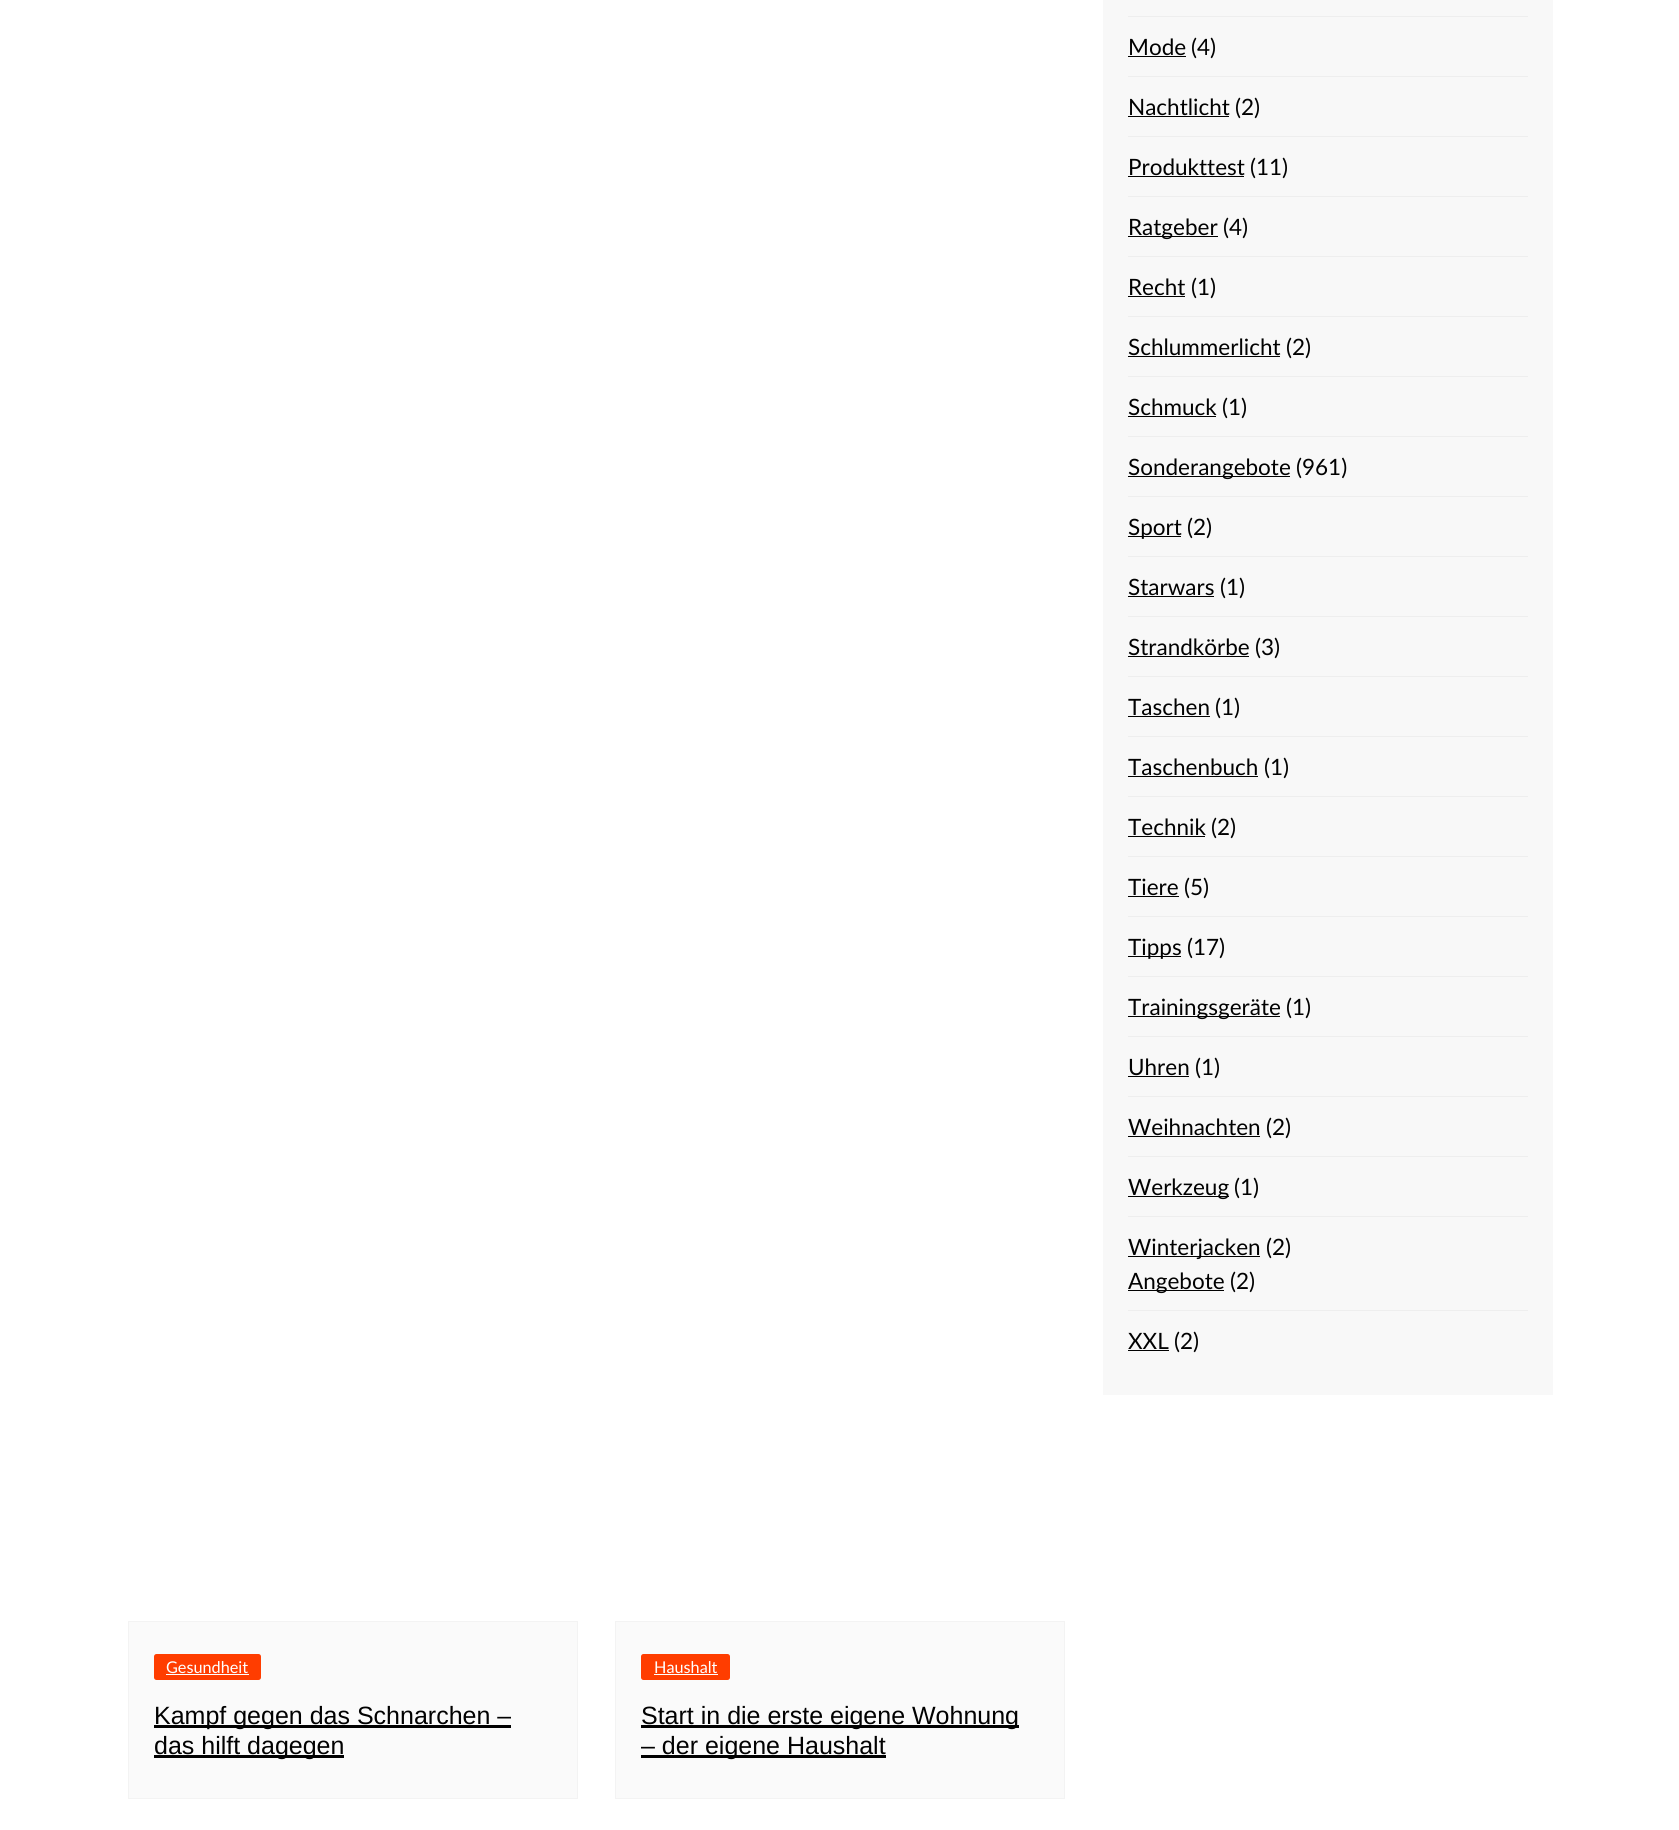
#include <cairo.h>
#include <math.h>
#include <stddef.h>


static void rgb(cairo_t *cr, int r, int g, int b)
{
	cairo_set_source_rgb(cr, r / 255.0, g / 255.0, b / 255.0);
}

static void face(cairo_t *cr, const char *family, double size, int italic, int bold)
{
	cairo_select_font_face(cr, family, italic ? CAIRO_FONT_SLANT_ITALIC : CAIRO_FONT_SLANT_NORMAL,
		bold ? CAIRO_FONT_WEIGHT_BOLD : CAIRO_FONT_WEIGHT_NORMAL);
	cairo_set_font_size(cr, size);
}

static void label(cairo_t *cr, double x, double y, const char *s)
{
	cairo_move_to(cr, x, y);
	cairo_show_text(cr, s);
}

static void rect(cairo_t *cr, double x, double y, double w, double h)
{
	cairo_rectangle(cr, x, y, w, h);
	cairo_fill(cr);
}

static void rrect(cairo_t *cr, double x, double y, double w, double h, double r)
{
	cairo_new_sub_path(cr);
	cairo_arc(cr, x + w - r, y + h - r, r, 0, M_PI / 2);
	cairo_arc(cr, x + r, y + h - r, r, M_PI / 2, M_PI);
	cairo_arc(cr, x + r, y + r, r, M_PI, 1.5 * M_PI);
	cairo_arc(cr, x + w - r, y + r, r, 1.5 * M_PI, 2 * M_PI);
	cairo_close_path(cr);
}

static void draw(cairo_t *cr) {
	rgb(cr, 255, 255, 255);
	cairo_paint(cr);
	rgb(cr, 248, 248, 248);
	rect(cr, 1103, 0, 450, 1395);
	rgb(cr, 238, 238, 238);
	rect(cr, 1128, 16, 400, 1);
	rect(cr, 1128, 76, 400, 1);
	face(cr, "Lato", 22.5, 0, 0);
	rgb(cr, 1, 1, 1);
	label(cr, 1128, 55, "Mode");
	rect(cr, 1128, 56, 58, 1);
	label(cr, 1191, 55, "(4)");
	rgb(cr, 238, 238, 238);
	rect(cr, 1128, 136, 400, 1);
	rgb(cr, 1, 1, 1);
	label(cr, 1128, 115, "Nachtlicht");
	rect(cr, 1128, 116, 101, 1);
	label(cr, 1235, 115, "(2)");
	rgb(cr, 238, 238, 238);
	rect(cr, 1128, 196, 400, 1);
	rgb(cr, 1, 1, 1);
	label(cr, 1128, 175, "Produkttest");
	rect(cr, 1128, 176, 116, 1);
	label(cr, 1250, 175, "(11)");
	rgb(cr, 238, 238, 238);
	rect(cr, 1128, 256, 400, 1);
	rgb(cr, 1, 1, 1);
	rect(cr, 1128, 236, 90, 1);
	label(cr, 1128, 235, "Ratgeber");
	label(cr, 1223, 235, "(4)");
	rgb(cr, 238, 238, 238);
	rect(cr, 1128, 316, 400, 1);
	rgb(cr, 1, 1, 1);
	label(cr, 1128, 295, "Recht");
	rect(cr, 1128, 296, 57, 1);
	label(cr, 1191, 295, "(1)");
	rgb(cr, 238, 238, 238);
	rect(cr, 1128, 376, 400, 1);
	rgb(cr, 1, 1, 1);
	label(cr, 1128, 355, "Schlummerlicht");
	rect(cr, 1128, 356, 152, 1);
	label(cr, 1286, 355, "(2)");
	rgb(cr, 238, 238, 238);
	rect(cr, 1128, 436, 400, 1);
	rgb(cr, 1, 1, 1);
	label(cr, 1128, 415, "Schmuck");
	rect(cr, 1128, 416, 88, 1);
	label(cr, 1222, 415, "(1)");
	rgb(cr, 238, 238, 238);
	rect(cr, 1128, 496, 400, 1);
	rgb(cr, 1, 1, 1);
	rect(cr, 1128, 476, 162, 1);
	label(cr, 1128, 475, "Sonderangebote");
	label(cr, 1296, 475, "(961)");
	rgb(cr, 238, 238, 238);
	rect(cr, 1128, 556, 400, 1);
	rgb(cr, 1, 1, 1);
	rect(cr, 1128, 536, 53, 1);
	label(cr, 1128, 535, "Sport");
	label(cr, 1187, 535, "(2)");
	rgb(cr, 238, 238, 238);
	rect(cr, 1128, 616, 400, 1);
	rgb(cr, 1, 1, 1);
	label(cr, 1128, 595, "Starwars");
	rect(cr, 1128, 596, 86, 1);
	label(cr, 1220, 595, "(1)");
	rgb(cr, 238, 238, 238);
	rect(cr, 1128, 676, 400, 1);
	rgb(cr, 1, 1, 1);
	label(cr, 1128, 655, "Strandkörbe");
	rect(cr, 1128, 656, 121, 1);
	label(cr, 1255, 655, "(3)");
	rgb(cr, 238, 238, 238);
	rect(cr, 1128, 736, 400, 1);
	rgb(cr, 1, 1, 1);
	label(cr, 1128, 715, "Taschen");
	rect(cr, 1128, 716, 82, 1);
	label(cr, 1215, 715, "(1)");
	rgb(cr, 238, 238, 238);
	rect(cr, 1128, 796, 400, 1);
	rgb(cr, 1, 1, 1);
	label(cr, 1128, 775, "Taschenbuch");
	rect(cr, 1128, 776, 130, 1);
	label(cr, 1264, 775, "(1)");
	rgb(cr, 238, 238, 238);
	rect(cr, 1128, 856, 400, 1);
	rgb(cr, 1, 1, 1);
	label(cr, 1128, 835, "Technik");
	rect(cr, 1128, 836, 77, 1);
	label(cr, 1211, 835, "(2)");
	rgb(cr, 238, 238, 238);
	rect(cr, 1128, 916, 400, 1);
	rgb(cr, 1, 1, 1);
	label(cr, 1128, 895, "Tiere");
	rect(cr, 1128, 896, 51, 1);
	label(cr, 1184, 895, "(5)");
	rgb(cr, 238, 238, 238);
	rect(cr, 1128, 976, 400, 1);
	rgb(cr, 1, 1, 1);
	rect(cr, 1128, 956, 53, 1);
	label(cr, 1128, 955, "Tipps");
	label(cr, 1187, 955, "(17)");
	rgb(cr, 238, 238, 238);
	rect(cr, 1128, 1036, 400, 1);
	rgb(cr, 1, 1, 1);
	rect(cr, 1128, 1016, 152, 1);
	label(cr, 1128, 1015, "Trainingsgeräte");
	label(cr, 1286, 1015, "(1)");
	rgb(cr, 238, 238, 238);
	rect(cr, 1128, 1096, 400, 1);
	rgb(cr, 1, 1, 1);
	label(cr, 1128, 1075, "Uhren");
	rect(cr, 1128, 1076, 61, 1);
	label(cr, 1195, 1075, "(1)");
	rgb(cr, 238, 238, 238);
	rect(cr, 1128, 1156, 400, 1);
	rgb(cr, 1, 1, 1);
	label(cr, 1128, 1135, "Weihnachten");
	rect(cr, 1128, 1136, 132, 1);
	label(cr, 1266, 1135, "(2)");
	rgb(cr, 238, 238, 238);
	rect(cr, 1128, 1216, 400, 1);
	rgb(cr, 1, 1, 1);
	rect(cr, 1128, 1196, 101, 1);
	label(cr, 1128, 1195, "Werkzeug");
	label(cr, 1234, 1195, "(1)");
	rgb(cr, 238, 238, 238);
	rect(cr, 1128, 1310, 400, 1);
	rgb(cr, 1, 1, 1);
	rect(cr, 1128, 1256, 132, 1);
	label(cr, 1128, 1255, "Winterjacken");
	label(cr, 1266, 1255, "(2)");
	rect(cr, 1128, 1290, 96, 1);
	label(cr, 1128, 1289, "Angebote");
	label(cr, 1230, 1289, "(2)");
	label(cr, 1128, 1349, "XXL");
	rect(cr, 1128, 1350, 41, 1);
	label(cr, 1174, 1349, "(2)");
	rgb(cr, 250, 250, 250);
	cairo_rectangle(cr, 128.5, 1621.5, 449, 177);
	cairo_fill_preserve(cr);
	rgb(cr, 243, 243, 243);
	cairo_set_line_width(cr, 1);
	cairo_stroke(cr);
	rgb(cr, 255, 61, 0);
	rrect(cr, 154, 1654, 107, 26, 2.5);
	cairo_fill(cr);
	face(cr, "Lato", 16.25, 0, 0);
	rgb(cr, 255, 255, 255);
	label(cr, 166, 1673, "Gesundheit");
	rect(cr, 166, 1674, 83, 1);
	rgb(cr, 1, 1, 1);
	rect(cr, 154, 1725, 357, 3);
	face(cr, "Liberation Sans", 25, 0, 0);
	label(cr, 154, 1724, "Kampf gegen das Schnarchen –");
	rect(cr, 154, 1755, 190, 3);
	label(cr, 154, 1754, "das hilft dagegen");
	rgb(cr, 250, 250, 250);
	cairo_rectangle(cr, 615.5, 1621.5, 449, 177);
	cairo_fill_preserve(cr);
	rgb(cr, 243, 243, 243);
	cairo_stroke(cr);
	rgb(cr, 255, 61, 0);
	rrect(cr, 641, 1654, 89, 26, 2.5);
	cairo_fill(cr);
	face(cr, "Lato", 16.25, 0, 0);
	rgb(cr, 255, 255, 255);
	label(cr, 654, 1673, "Haushalt");
	rect(cr, 654, 1674, 64, 1);
	rgb(cr, 1, 1, 1);
	rect(cr, 641, 1725, 378, 3);
	face(cr, "Liberation Sans", 25, 0, 0);
	label(cr, 641, 1724, "Start in die erste eigene Wohnung");
	rect(cr, 641, 1755, 245, 3);
	label(cr, 641, 1754, "– der eigene Haushalt");
}

int main(void) {
	cairo_surface_t *surface = cairo_image_surface_create(CAIRO_FORMAT_RGB24, 1679, 1830);
	cairo_t *cr = cairo_create(surface);
	cairo_font_options_t *options = cairo_font_options_create();
	cairo_font_options_set_hint_metrics(options, CAIRO_HINT_METRICS_OFF);
	cairo_font_options_set_hint_style(options, CAIRO_HINT_STYLE_NONE);
	cairo_set_font_options(cr, options);
	cairo_set_miter_limit(cr, 4);
	draw(cr);
	cairo_surface_write_to_png(surface, "render.png");
	cairo_font_options_destroy(options);
	cairo_destroy(cr);
	cairo_surface_destroy(surface);
	return 0;
}
